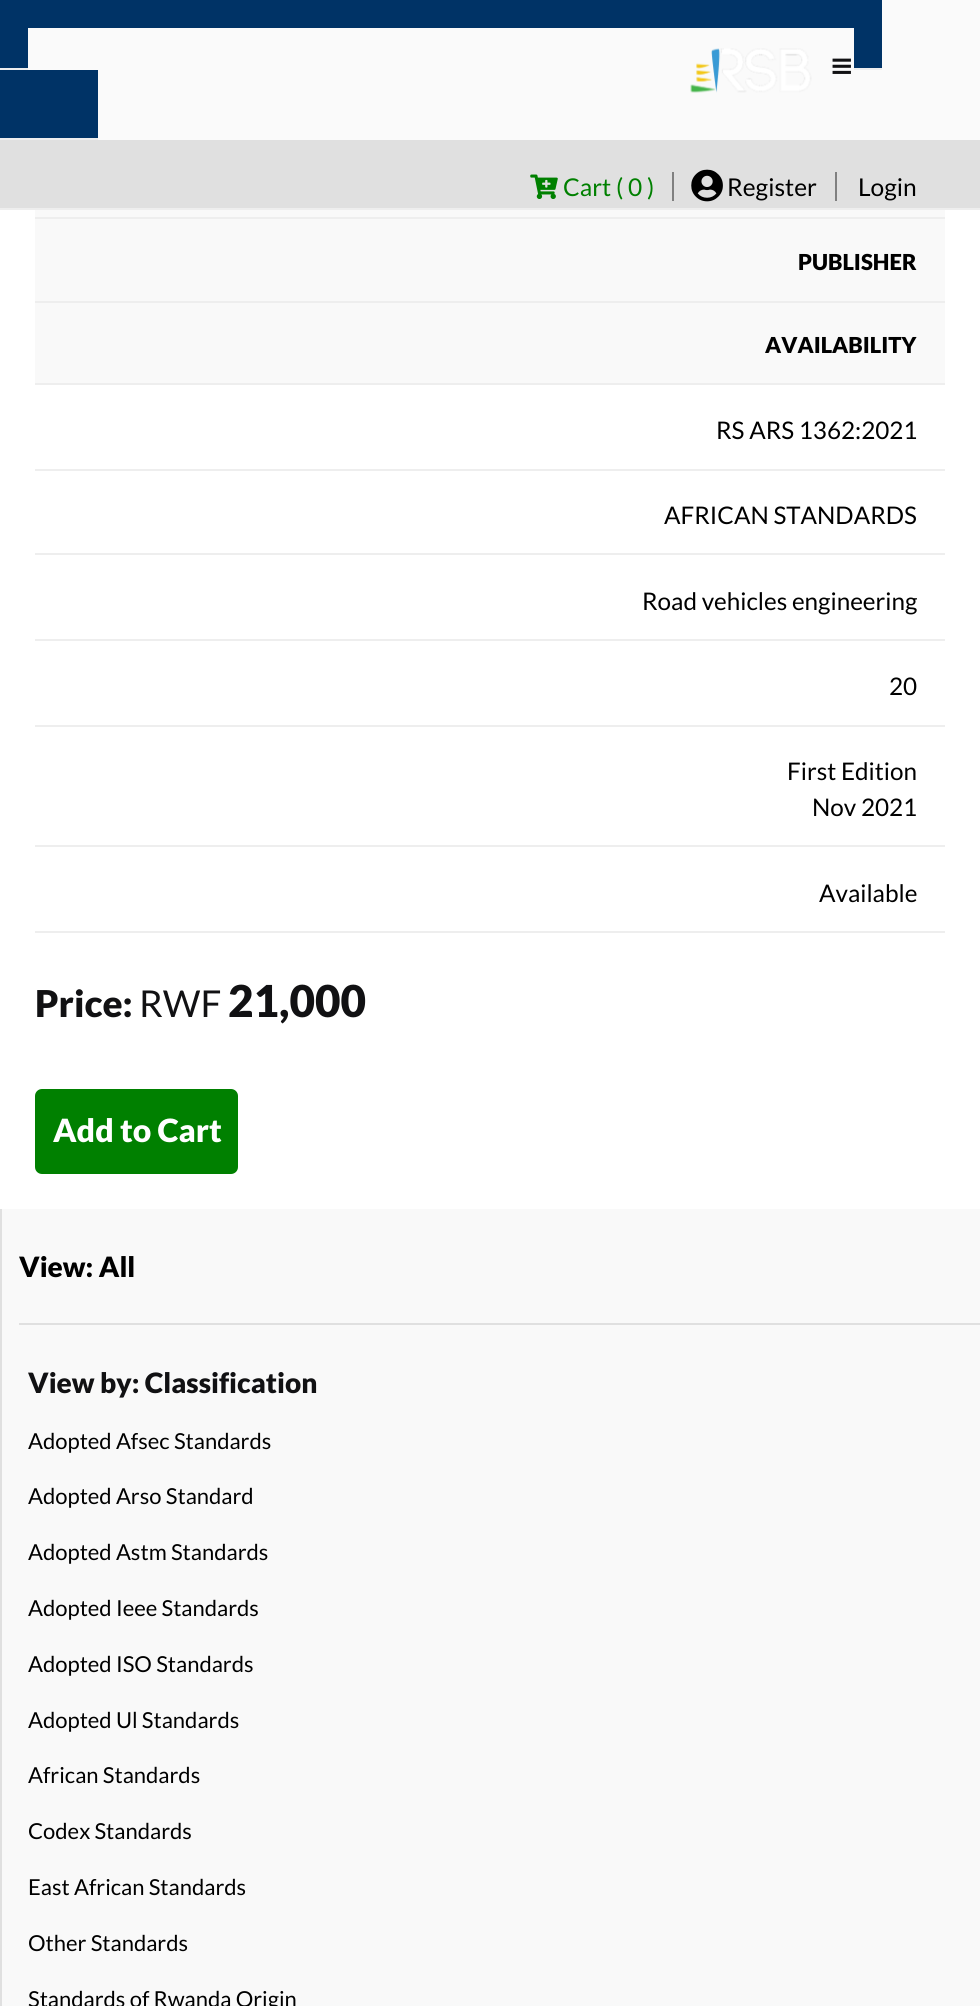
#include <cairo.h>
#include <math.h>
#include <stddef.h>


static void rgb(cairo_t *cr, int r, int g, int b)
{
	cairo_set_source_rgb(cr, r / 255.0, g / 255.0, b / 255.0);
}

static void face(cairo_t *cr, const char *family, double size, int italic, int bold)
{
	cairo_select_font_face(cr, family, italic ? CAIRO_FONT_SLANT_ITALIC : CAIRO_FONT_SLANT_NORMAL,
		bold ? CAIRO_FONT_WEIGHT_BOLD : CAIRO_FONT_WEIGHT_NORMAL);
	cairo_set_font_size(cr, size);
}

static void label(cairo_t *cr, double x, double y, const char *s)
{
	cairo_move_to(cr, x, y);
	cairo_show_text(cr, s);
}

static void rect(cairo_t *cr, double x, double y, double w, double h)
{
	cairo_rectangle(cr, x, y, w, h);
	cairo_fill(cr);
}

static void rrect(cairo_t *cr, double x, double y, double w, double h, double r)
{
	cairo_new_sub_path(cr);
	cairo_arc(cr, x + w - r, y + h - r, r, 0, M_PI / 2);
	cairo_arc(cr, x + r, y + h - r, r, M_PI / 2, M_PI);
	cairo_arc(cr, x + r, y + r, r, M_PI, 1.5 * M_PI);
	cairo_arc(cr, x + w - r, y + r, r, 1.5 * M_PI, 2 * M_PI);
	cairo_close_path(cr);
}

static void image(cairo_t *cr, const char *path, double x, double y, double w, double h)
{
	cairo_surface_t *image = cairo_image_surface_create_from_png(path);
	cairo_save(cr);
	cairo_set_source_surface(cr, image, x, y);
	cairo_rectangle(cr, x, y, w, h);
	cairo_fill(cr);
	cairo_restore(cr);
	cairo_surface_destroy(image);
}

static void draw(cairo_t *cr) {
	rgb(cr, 255, 255, 255);
	cairo_paint(cr);
	rgb(cr, 250, 250, 250);
	rect(cr, 854, 0, 126, 140);
	rgb(cr, 0, 51, 102);
	rect(cr, 0, 0, 882, 68);
	rgb(cr, 238, 238, 238);
	rect(cr, 0, 68, 882, 2);
	rgb(cr, 250, 250, 250);
	rect(cr, 28, 28, 826, 112);
	image(cr, "image0.png", 690, 48, 122, 45);
	image(cr, "image1.png", 832, 58, 19, 16);
	rgb(cr, 0, 51, 102);
	rect(cr, 0, 70, 98, 68);
	rgb(cr, 238, 238, 238);
	rect(cr, 0, 138, 98, 2);
	rgb(cr, 224, 224, 224);
	rect(cr, 0, 140, 980, 68);
	rgb(cr, 238, 238, 238);
	rect(cr, 0, 208, 980, 2);
	image(cr, "image2.png", 530, 174, 28, 25);
	face(cr, "Lato", 24.5, 0, 0);
	rgb(cr, 0, 128, 0);
	label(cr, 563, 196, "Cart ( 0 )");
	rgb(cr, 128, 128, 128);
	rect(cr, 672, 172, 2, 29);
	image(cr, "image3.png", 691, 169, 32, 33);
	rgb(cr, 0, 0, 0);
	label(cr, 727, 196, "Register");
	rgb(cr, 128, 128, 128);
	rect(cr, 835, 172, 2, 29);
	rgb(cr, 0, 0, 0);
	label(cr, 858, 196, "Login");
	rgb(cr, 249, 249, 249);
	rect(cr, 35, 210, 910, 173);
	rgb(cr, 238, 238, 238);
	rect(cr, 35, 217, 910, 2);
	rect(cr, 35, 301, 910, 2);
	face(cr, "Lato Black", 22, 0, 0);
	rgb(cr, 0, 0, 0);
	label(cr, 798, 270, "PUBLISHER");
	rgb(cr, 238, 238, 238);
	rect(cr, 35, 383, 910, 2);
	rgb(cr, 0, 0, 0);
	label(cr, 765, 353, "AVAILABILITY");
	rgb(cr, 238, 238, 238);
	rect(cr, 35, 469, 910, 2);
	face(cr, "Lato", 24.25, 0, 0);
	rgb(cr, 0, 0, 0);
	label(cr, 716, 439, "RS ARS 1362:2021");
	rgb(cr, 238, 238, 238);
	rect(cr, 35, 553, 910, 2);
	rgb(cr, 0, 0, 0);
	label(cr, 664, 524, "AFRICAN STANDARDS");
	rgb(cr, 238, 238, 238);
	rect(cr, 35, 639, 910, 2);
	rgb(cr, 0, 0, 0);
	label(cr, 642, 610, "Road vehicles engineering");
	rgb(cr, 238, 238, 238);
	rect(cr, 35, 725, 910, 2);
	rgb(cr, 0, 0, 0);
	label(cr, 889, 695, "20");
	rgb(cr, 238, 238, 238);
	rect(cr, 35, 845, 910, 2);
	rgb(cr, 0, 0, 0);
	label(cr, 787, 780, "First Edition");
	label(cr, 812, 816, "Nov 2021");
	rgb(cr, 238, 238, 238);
	rect(cr, 35, 931, 910, 2);
	rgb(cr, 0, 0, 0);
	label(cr, 819, 902, "Available");
	face(cr, "Lato Black", 37, 0, 0);
	rgb(cr, 17, 17, 19);
	label(cr, 35, 1017, "Price:");
	face(cr, "Lato", 37, 0, 0);
	label(cr, 139, 1017, "RWF");
	face(cr, "Lato Black", 44, 0, 0);
	label(cr, 228, 1017, "21,000");
	rgb(cr, 0, 128, 0);
	rrect(cr, 35, 1089, 203, 85, 7);
	cairo_fill(cr);
	face(cr, "Lato Black", 32, 0, 0);
	rgb(cr, 255, 255, 255);
	label(cr, 53, 1142, "Add to Cart");
	rgb(cr, 249, 249, 249);
	rect(cr, 2, 1209, 978, 797);
	rgb(cr, 224, 224, 224);
	rect(cr, 0, 1209, 2, 797);
	face(cr, "Lato Black", 28, 0, 0);
	rgb(cr, 0, 0, 0);
	label(cr, 19, 1277, "View: All");
	rgb(cr, 224, 224, 224);
	rect(cr, 19, 1323, 961, 2);
	rgb(cr, 17, 17, 19);
	label(cr, 28, 1393, "View by: Classification");
	face(cr, "Lato", 22, 0, 0);
	rgb(cr, 0, 0, 0);
	label(cr, 28, 1449, "Adopted Afsec Standards");
	label(cr, 28, 1504, "Adopted Arso Standard");
	label(cr, 28, 1560, "Adopted Astm Standards");
	label(cr, 28, 1616, "Adopted Ieee Standards");
	label(cr, 28, 1672, "Adopted ISO Standards");
	label(cr, 28, 1728, "Adopted Ul Standards");
	label(cr, 28, 1783, "African Standards");
	label(cr, 28, 1839, "Codex Standards");
	label(cr, 28, 1895, "East African Standards");
	label(cr, 28, 1951, "Other Standards");
	label(cr, 28, 2007, "Standards of Rwanda Origin");
}

int main(void) {
	cairo_surface_t *surface = cairo_image_surface_create(CAIRO_FORMAT_RGB24, 980, 2006);
	cairo_t *cr = cairo_create(surface);
	cairo_font_options_t *options = cairo_font_options_create();
	cairo_font_options_set_hint_metrics(options, CAIRO_HINT_METRICS_OFF);
	cairo_font_options_set_hint_style(options, CAIRO_HINT_STYLE_NONE);
	cairo_set_font_options(cr, options);
	cairo_set_miter_limit(cr, 4);
	draw(cr);
	cairo_surface_write_to_png(surface, "render.png");
	cairo_font_options_destroy(options);
	cairo_destroy(cr);
	cairo_surface_destroy(surface);
	return 0;
}
